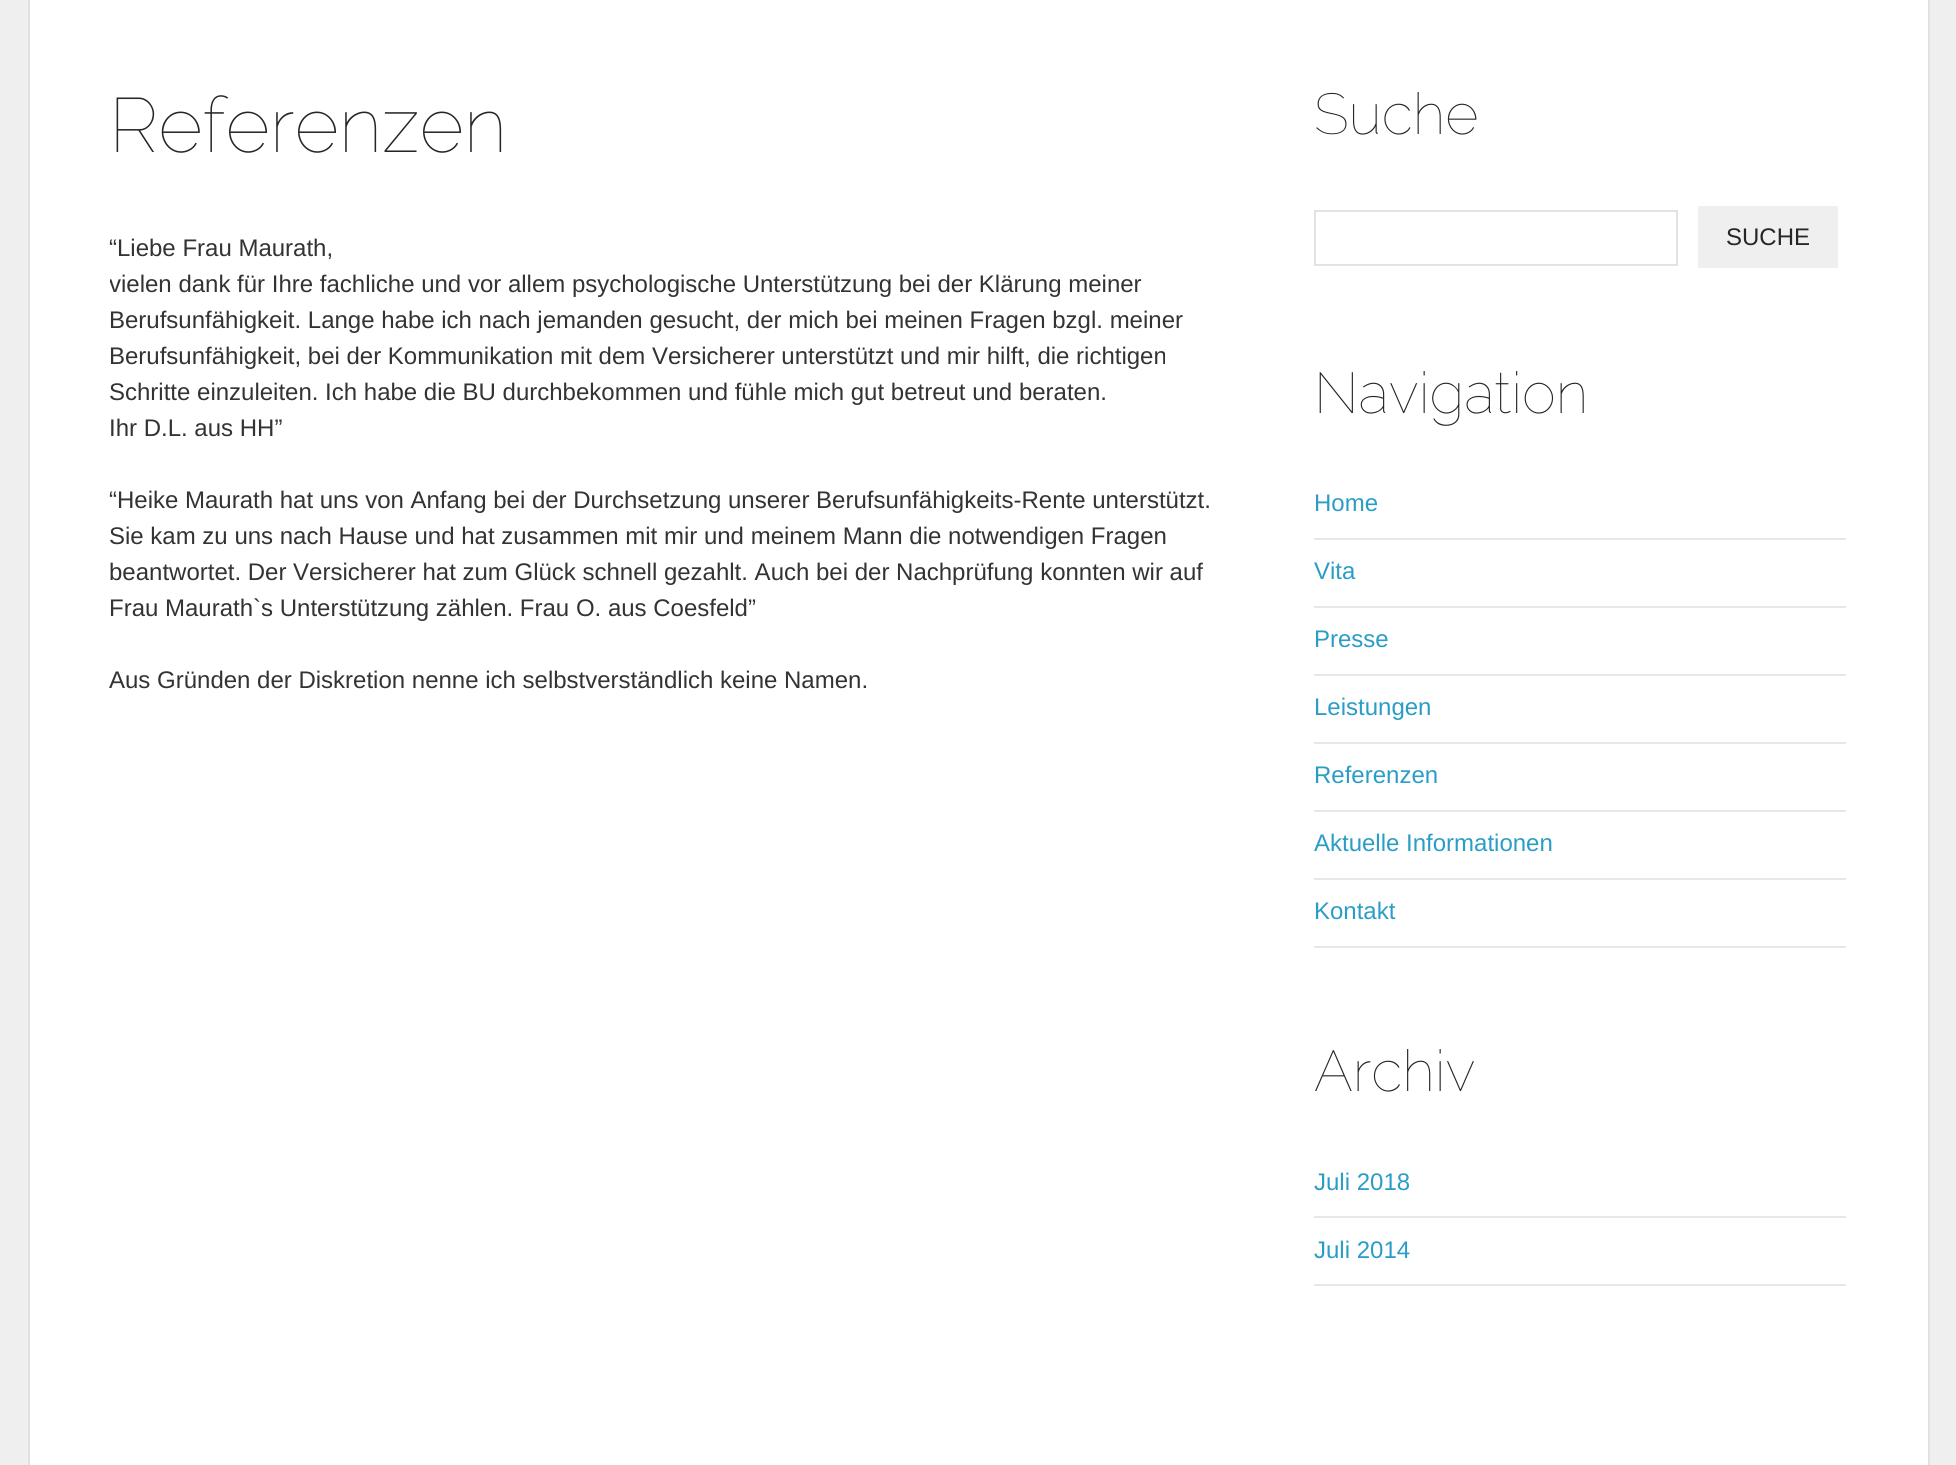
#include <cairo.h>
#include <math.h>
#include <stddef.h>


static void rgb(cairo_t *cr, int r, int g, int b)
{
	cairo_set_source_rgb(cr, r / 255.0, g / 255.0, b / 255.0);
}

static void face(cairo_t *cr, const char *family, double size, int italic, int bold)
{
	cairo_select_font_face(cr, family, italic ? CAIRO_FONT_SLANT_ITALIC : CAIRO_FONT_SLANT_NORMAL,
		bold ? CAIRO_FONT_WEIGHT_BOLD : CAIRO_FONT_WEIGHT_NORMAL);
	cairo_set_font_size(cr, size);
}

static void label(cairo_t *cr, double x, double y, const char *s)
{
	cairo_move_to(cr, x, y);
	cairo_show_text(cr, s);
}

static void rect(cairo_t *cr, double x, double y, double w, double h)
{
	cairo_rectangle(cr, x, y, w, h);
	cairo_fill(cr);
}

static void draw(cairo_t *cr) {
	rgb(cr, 239, 239, 239);
	cairo_paint(cr);
	rgb(cr, 255, 255, 255);
	rect(cr, 30, 0, 1898, 1465);
	rgb(cr, 225, 225, 225);
	rect(cr, 1928, 0, 2, 1465);
	rect(cr, 28, 0, 2, 1465);
	face(cr, "Raleway Thin", 76.75, 0, 0);
	rgb(cr, 38, 38, 38);
	label(cr, 109, 152, "Referenzen");
	face(cr, "Liberation Sans", 24, 0, 0);
	rgb(cr, 51, 51, 51);
	label(cr, 109, 256, "“Liebe Frau Maurath,");
	cairo_save(cr);
	cairo_rectangle(cr, 110, 80, 1134, 654);
	cairo_clip(cr);
	label(cr, 109, 292, "vielen dank für Ihre fachliche und vor allem psychologische Unterstützung bei der Klärung meiner");
	cairo_restore(cr);
	label(cr, 109, 328, "Berufsunfähigkeit. Lange habe ich nach jemanden gesucht, der mich bei meinen Fragen bzgl. meiner");
	label(cr, 109, 364, "Berufsunfähigkeit, bei der Kommunikation mit dem Versicherer unterstützt und mir hilft, die richtigen");
	label(cr, 109, 400, "Schritte einzuleiten. Ich habe die BU durchbekommen und fühle mich gut betreut und beraten.");
	label(cr, 109, 436, "Ihr D.L. aus HH”");
	label(cr, 109, 508, "“Heike Maurath hat uns von Anfang bei der Durchsetzung unserer Berufsunfähigkeits-Rente unterstützt.");
	label(cr, 109, 544, "Sie kam zu uns nach Hause und hat zusammen mit mir und meinem Mann die notwendigen Fragen");
	label(cr, 109, 580, "beantwortet. Der Versicherer hat zum Glück schnell gezahlt. Auch bei der Nachprüfung konnten wir auf");
	label(cr, 109, 616, "Frau Maurath`s Unterstützung zählen. Frau O. aus Coesfeld”");
	label(cr, 109, 688, "Aus Gründen der Diskretion nenne ich selbstverständlich keine Namen.");
	face(cr, "Raleway Thin", 57.5, 0, 0);
	rgb(cr, 38, 38, 38);
	label(cr, 1314, 134, "Suche");
	cairo_rectangle(cr, 1315, 211, 362, 54);
	rgb(cr, 227, 227, 227);
	cairo_stroke(cr);
	rgb(cr, 239, 239, 239);
	rect(cr, 1698, 206, 140, 62);
	face(cr, "Liberation Sans", 24, 0, 0);
	rgb(cr, 38, 38, 38);
	label(cr, 1726, 245, "SUCHE");
	face(cr, "Raleway Thin", 57.5, 0, 0);
	label(cr, 1314, 413, "Navigation");
	rgb(cr, 231, 231, 231);
	rect(cr, 1314, 538, 532, 2);
	face(cr, "Liberation Sans", 24, 0, 0);
	rgb(cr, 42, 157, 199);
	label(cr, 1314, 511, "Home");
	rgb(cr, 231, 231, 231);
	rect(cr, 1314, 606, 532, 2);
	rgb(cr, 42, 157, 199);
	label(cr, 1314, 579, "Vita");
	rgb(cr, 231, 231, 231);
	rect(cr, 1314, 674, 532, 2);
	rgb(cr, 42, 157, 199);
	label(cr, 1314, 647, "Presse");
	rgb(cr, 231, 231, 231);
	rect(cr, 1314, 742, 532, 2);
	rgb(cr, 42, 157, 199);
	label(cr, 1314, 715, "Leistungen");
	rgb(cr, 231, 231, 231);
	rect(cr, 1314, 810, 532, 2);
	rgb(cr, 42, 157, 199);
	label(cr, 1314, 783, "Referenzen");
	rgb(cr, 231, 231, 231);
	rect(cr, 1314, 878, 532, 2);
	rgb(cr, 42, 157, 199);
	label(cr, 1314, 851, "Aktuelle Informationen");
	rgb(cr, 231, 231, 231);
	rect(cr, 1314, 946, 532, 2);
	rgb(cr, 42, 157, 199);
	label(cr, 1314, 919, "Kontakt");
	face(cr, "Raleway Thin", 57.5, 0, 0);
	rgb(cr, 38, 38, 38);
	label(cr, 1314, 1091, "Archiv");
	rgb(cr, 231, 231, 231);
	rect(cr, 1314, 1216, 532, 2);
	face(cr, "Liberation Sans", 24, 0, 0);
	rgb(cr, 42, 157, 199);
	label(cr, 1314, 1190, "Juli 2018");
	rgb(cr, 231, 231, 231);
	rect(cr, 1314, 1284, 532, 2);
	rgb(cr, 42, 157, 199);
	label(cr, 1314, 1258, "Juli 2014");
}

int main(void) {
	cairo_surface_t *surface = cairo_image_surface_create(CAIRO_FORMAT_RGB24, 1956, 1465);
	cairo_t *cr = cairo_create(surface);
	cairo_font_options_t *options = cairo_font_options_create();
	cairo_font_options_set_hint_metrics(options, CAIRO_HINT_METRICS_OFF);
	cairo_font_options_set_hint_style(options, CAIRO_HINT_STYLE_NONE);
	cairo_set_font_options(cr, options);
	cairo_set_miter_limit(cr, 4);
	draw(cr);
	cairo_surface_write_to_png(surface, "render.png");
	cairo_font_options_destroy(options);
	cairo_destroy(cr);
	cairo_surface_destroy(surface);
	return 0;
}
